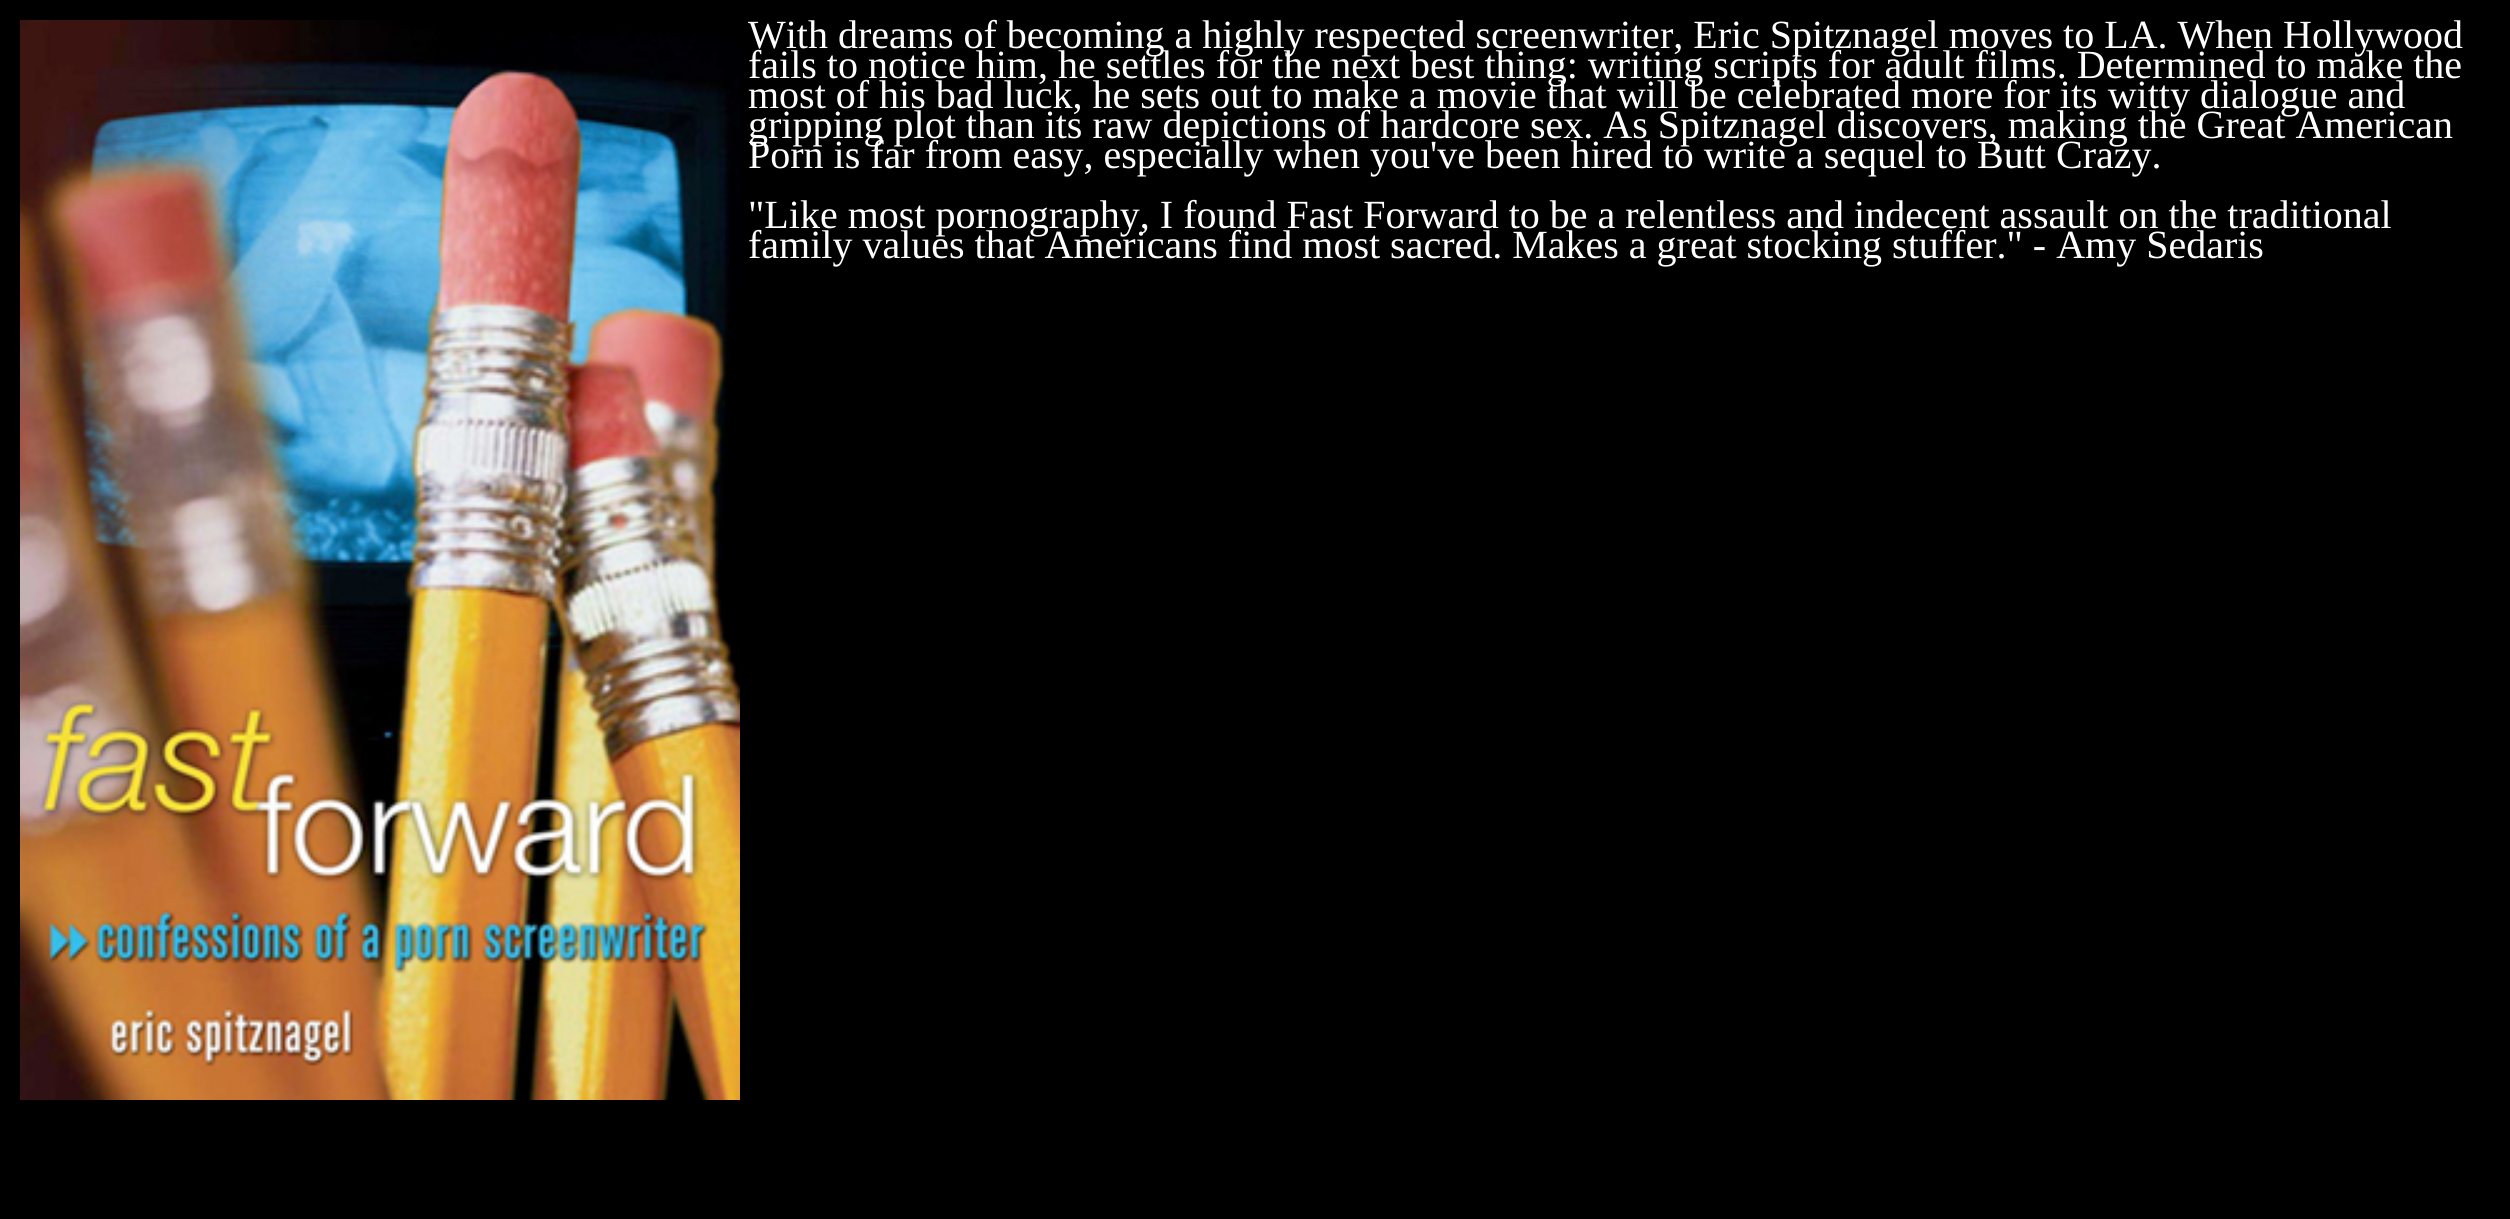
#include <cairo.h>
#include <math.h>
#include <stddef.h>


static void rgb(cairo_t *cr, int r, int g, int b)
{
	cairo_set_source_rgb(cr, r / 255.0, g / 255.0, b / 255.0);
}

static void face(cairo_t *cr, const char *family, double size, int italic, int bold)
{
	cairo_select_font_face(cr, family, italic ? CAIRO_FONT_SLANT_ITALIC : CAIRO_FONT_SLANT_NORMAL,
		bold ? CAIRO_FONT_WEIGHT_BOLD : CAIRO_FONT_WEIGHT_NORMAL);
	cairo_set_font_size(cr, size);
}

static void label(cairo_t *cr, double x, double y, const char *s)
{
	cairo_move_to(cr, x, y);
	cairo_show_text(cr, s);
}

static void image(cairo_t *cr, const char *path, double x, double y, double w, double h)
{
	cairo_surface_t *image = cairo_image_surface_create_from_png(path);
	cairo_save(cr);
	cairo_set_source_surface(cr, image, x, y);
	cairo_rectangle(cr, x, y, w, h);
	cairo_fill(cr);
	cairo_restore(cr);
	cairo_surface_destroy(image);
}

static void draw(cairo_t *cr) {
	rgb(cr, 0, 0, 0);
	cairo_paint(cr);
	image(cr, "image0.png", 20, 20, 720, 1080);
	face(cr, "Liberation Serif", 40, 0, 0);
	rgb(cr, 255, 255, 255);
	label(cr, 748, 48, "With dreams of becoming a highly respected screenwriter, Eric Spitznagel moves to LA. When Hollywood");
	label(cr, 748, 78, "fails to notice him, he settles for the next best thing: writing scripts for adult films. Determined to make the");
	label(cr, 748, 108, "most of his bad luck, he sets out to make a movie that will be celebrated more for its witty dialogue and");
	label(cr, 748, 138, "gripping plot than its raw depictions of hardcore sex. As Spitznagel discovers, making the Great American");
	label(cr, 748, 168, "Porn is far from easy, especially when you've been hired to write a sequel to Butt Crazy.");
	label(cr, 748, 228, "\"Like most pornography, I found Fast Forward to be a relentless and indecent assault on the traditional");
	label(cr, 748, 258, "family values that Americans find most sacred. Makes a great stocking stuffer.\" - Amy Sedaris");
}

int main(void) {
	cairo_surface_t *surface = cairo_image_surface_create(CAIRO_FORMAT_RGB24, 2510, 1219);
	cairo_t *cr = cairo_create(surface);
	cairo_font_options_t *options = cairo_font_options_create();
	cairo_font_options_set_hint_metrics(options, CAIRO_HINT_METRICS_OFF);
	cairo_font_options_set_hint_style(options, CAIRO_HINT_STYLE_NONE);
	cairo_set_font_options(cr, options);
	cairo_set_miter_limit(cr, 4);
	draw(cr);
	cairo_surface_write_to_png(surface, "render.png");
	cairo_font_options_destroy(options);
	cairo_destroy(cr);
	cairo_surface_destroy(surface);
	return 0;
}
